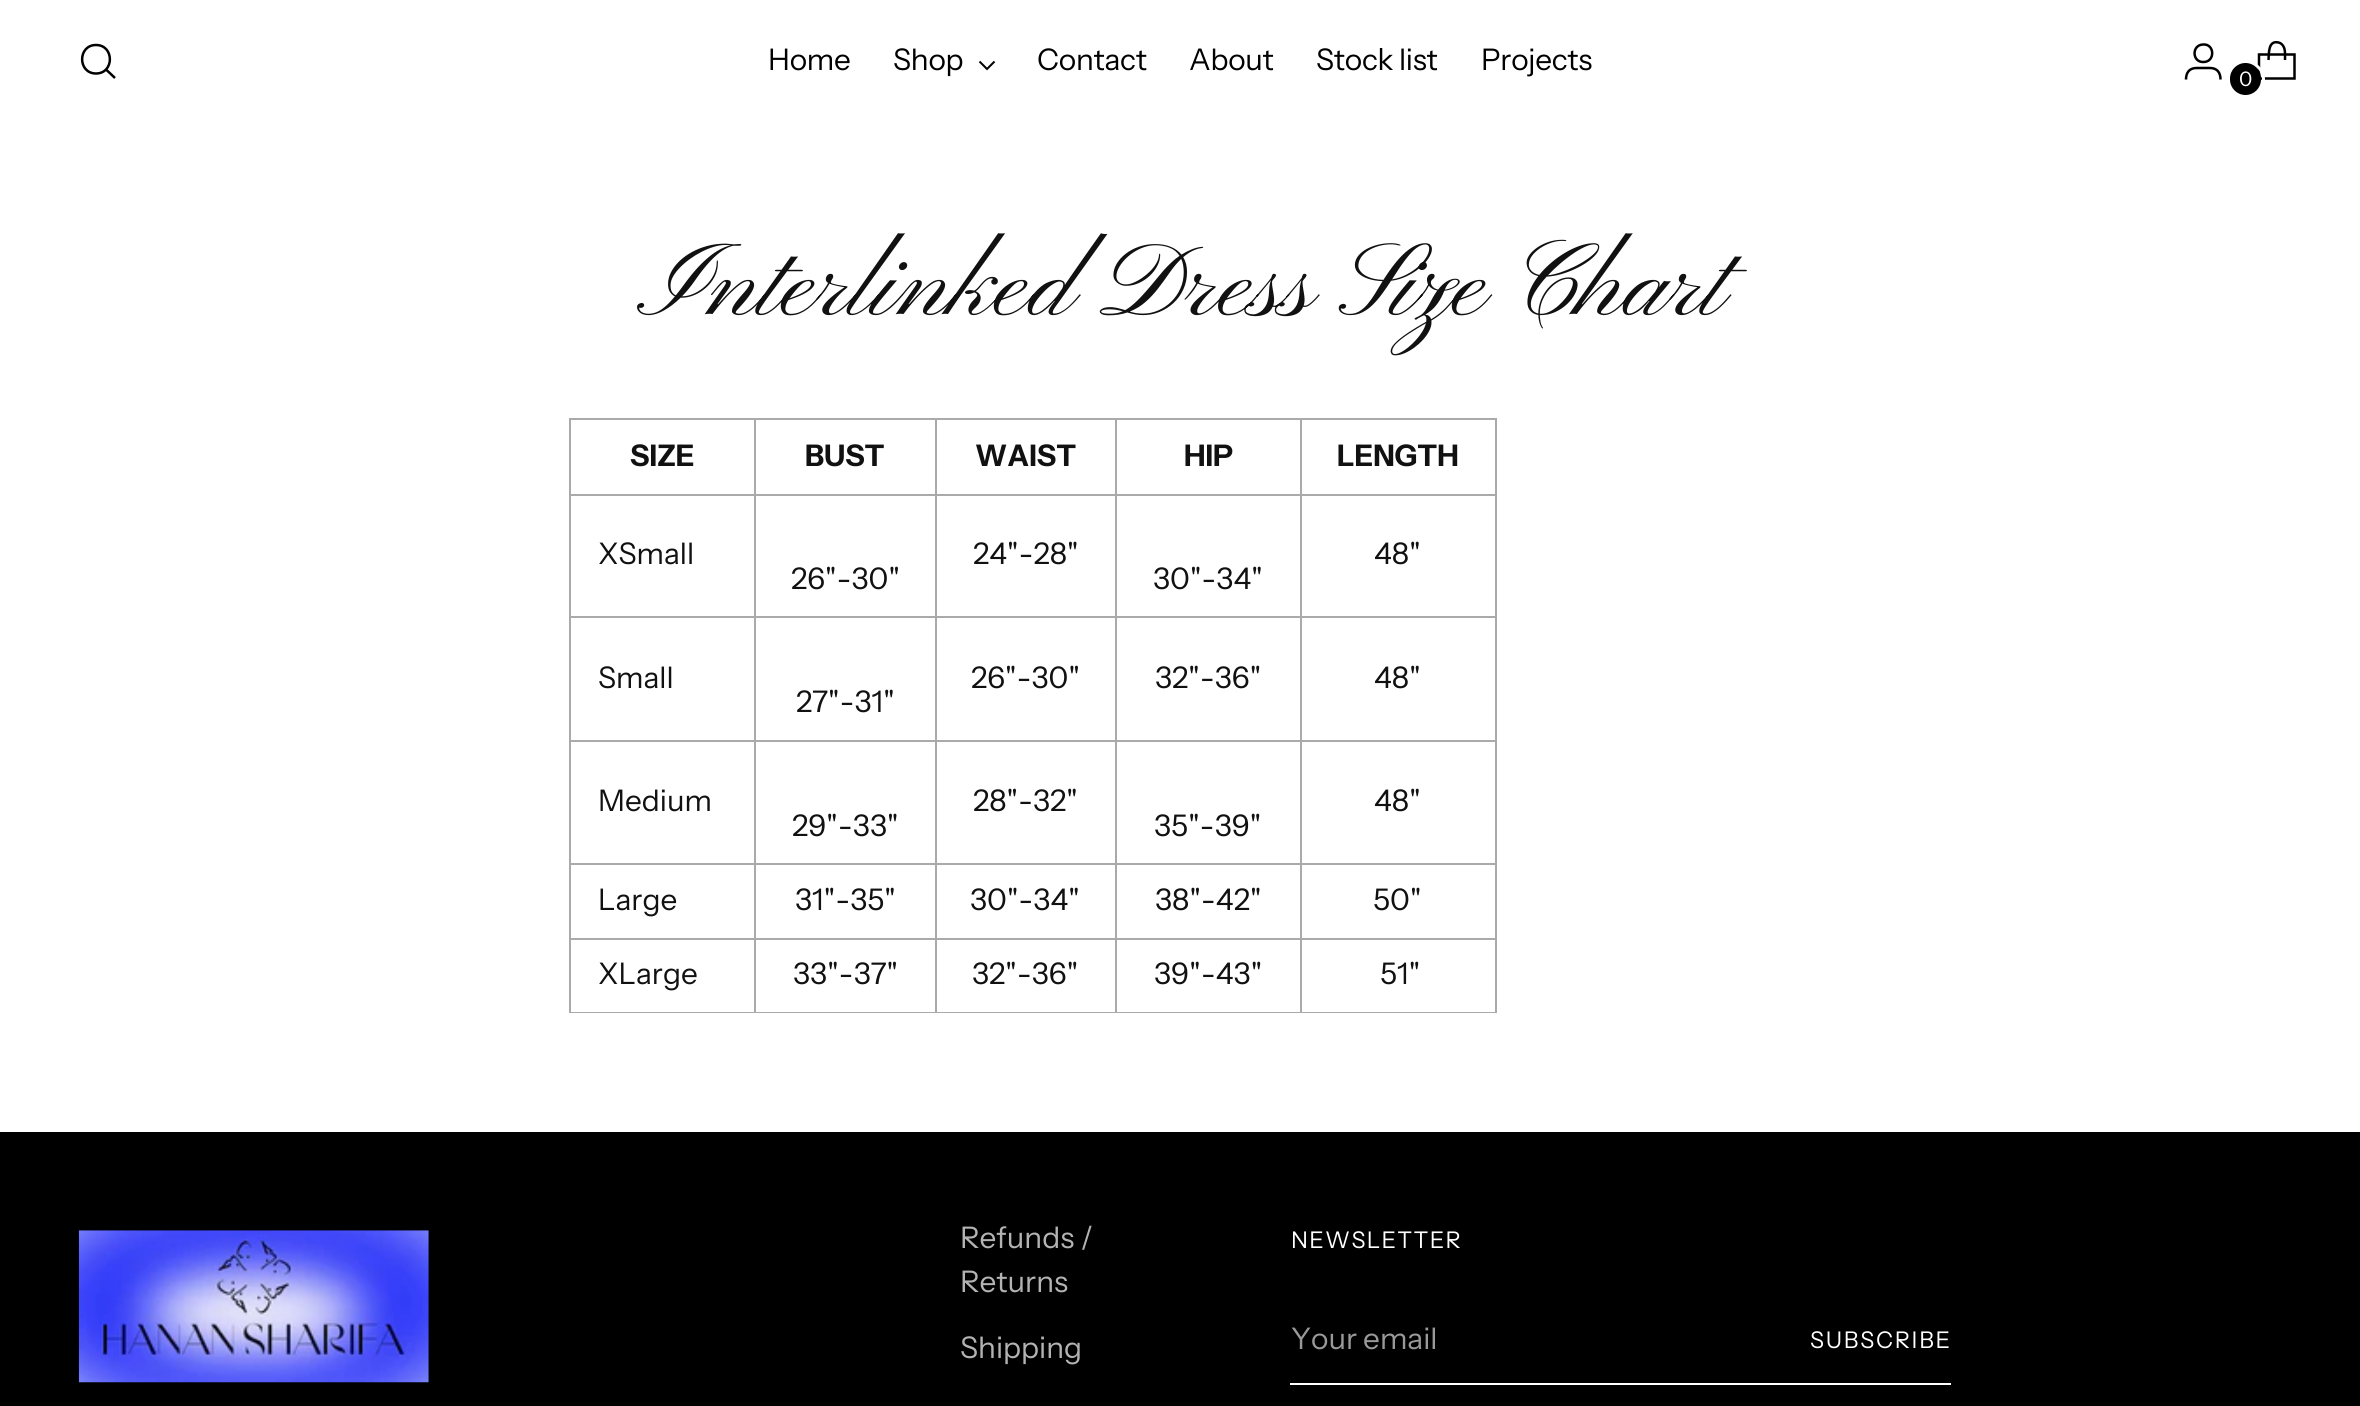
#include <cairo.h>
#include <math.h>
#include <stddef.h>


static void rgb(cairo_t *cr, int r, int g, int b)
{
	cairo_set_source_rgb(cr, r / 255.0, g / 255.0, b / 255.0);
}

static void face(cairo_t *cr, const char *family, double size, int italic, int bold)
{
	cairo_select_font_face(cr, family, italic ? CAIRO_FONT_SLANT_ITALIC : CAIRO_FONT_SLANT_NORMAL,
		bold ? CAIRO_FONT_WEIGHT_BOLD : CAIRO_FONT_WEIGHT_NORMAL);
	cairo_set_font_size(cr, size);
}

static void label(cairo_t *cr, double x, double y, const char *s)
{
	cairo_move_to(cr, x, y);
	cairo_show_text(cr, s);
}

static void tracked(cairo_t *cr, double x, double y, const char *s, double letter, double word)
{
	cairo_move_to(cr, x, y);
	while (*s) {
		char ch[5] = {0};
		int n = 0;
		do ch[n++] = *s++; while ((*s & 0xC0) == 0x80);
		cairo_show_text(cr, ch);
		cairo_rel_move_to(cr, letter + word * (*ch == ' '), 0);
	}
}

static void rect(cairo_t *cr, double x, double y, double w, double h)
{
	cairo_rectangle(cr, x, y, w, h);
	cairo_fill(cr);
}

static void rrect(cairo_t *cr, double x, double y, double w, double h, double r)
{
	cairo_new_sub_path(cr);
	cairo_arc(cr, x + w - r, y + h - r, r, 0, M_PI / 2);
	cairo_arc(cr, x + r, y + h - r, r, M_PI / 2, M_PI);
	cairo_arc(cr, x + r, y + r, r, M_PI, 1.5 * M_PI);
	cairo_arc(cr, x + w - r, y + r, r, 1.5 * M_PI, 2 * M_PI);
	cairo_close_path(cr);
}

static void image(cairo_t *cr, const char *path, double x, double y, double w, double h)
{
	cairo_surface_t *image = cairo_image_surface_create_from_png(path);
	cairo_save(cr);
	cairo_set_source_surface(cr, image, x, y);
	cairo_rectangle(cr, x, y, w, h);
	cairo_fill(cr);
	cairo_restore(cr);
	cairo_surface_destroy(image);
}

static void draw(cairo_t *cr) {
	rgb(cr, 255, 255, 255);
	cairo_paint(cr);
	cairo_new_path(cr);
	cairo_move_to(cr, 96, 73.5);
	cairo_curve_to(cr, 114.5, 73.5, 114.5, 45, 96, 45);
	cairo_curve_to(cr, 77.5, 45, 77.5, 73.5, 96, 73.5);
	cairo_close_path(cr);
	rgb(cr, 0, 0, 0);
	cairo_set_line_width(cr, 2.5);
	cairo_set_line_cap(cr, CAIRO_LINE_CAP_ROUND);
	cairo_stroke(cr);
	cairo_new_path(cr);
	cairo_move_to(cr, 106, 69.5);
	cairo_line_to(cr, 115, 78);
	cairo_set_line_cap(cr, CAIRO_LINE_CAP_BUTT);
	cairo_stroke(cr);
	face(cr, "Instrument Sans", 29.75, 0, 0);
	tracked(cr, 768, 70, "Home", -0.25, 0);
	tracked(cr, 893, 70, "Shop", -0.25, 0);
	cairo_new_path(cr);
	cairo_move_to(cr, 979.5, 61.5);
	cairo_line_to(cr, 987, 69);
	cairo_line_to(cr, 994.5, 61.5);
	cairo_set_line_width(cr, 2);
	cairo_stroke(cr);
	tracked(cr, 1037, 70, "Contact", -0.25, 0);
	tracked(cr, 1189, 70, "About", -0.25, 0);
	tracked(cr, 1316, 70, "Stock list", -0.25, 0);
	tracked(cr, 1481, 70, "Projects", -0.25, 0);
	cairo_new_path(cr);
	cairo_move_to(cr, 2203, 62);
	cairo_curve_to(cr, 2215.5, 62.5, 2215, 43.5, 2203, 44.5);
	cairo_curve_to(cr, 2191.5, 45, 2192, 62, 2203, 62);
	cairo_close_path(cr);
	cairo_move_to(cr, 2186, 79.5);
	cairo_curve_to(cr, 2186, 73, 2189, 68, 2196.5, 68);
	cairo_line_to(cr, 2210, 68);
	cairo_curve_to(cr, 2217.5, 68, 2220.5, 73, 2220.5, 79.5);
	cairo_set_line_width(cr, 2.5);
	cairo_stroke(cr);
	cairo_new_path(cr);
	cairo_move_to(cr, 2285, 60);
	cairo_curve_to(cr, 2285, 56, 2285.5, 51.5, 2284, 47.5);
	cairo_curve_to(cr, 2283, 45, 2281, 43, 2278.5, 42.5);
	cairo_curve_to(cr, 2268, 40, 2269, 53.5, 2268.5, 60);
	cairo_set_line_join(cr, CAIRO_LINE_JOIN_BEVEL);
	cairo_stroke(cr);
	cairo_new_path(cr);
	cairo_move_to(cr, 2294.5, 78.5);
	cairo_line_to(cr, 2294.5, 54.5);
	cairo_line_to(cr, 2259, 54.5);
	cairo_line_to(cr, 2259, 78.5);
	cairo_close_path(cr);
	cairo_set_line_join(cr, CAIRO_LINE_JOIN_MITER);
	cairo_stroke(cr);
	cairo_arc(cr, 2246.5, 79.5, 17, 0, 2 * M_PI);
	rgb(cr, 255, 255, 255);
	cairo_set_line_width(cr, 3);
	cairo_stroke(cr);
	rgb(cr, 0, 0, 0);
	rrect(cr, 2230, 63, 31, 32, 15.5);
	cairo_fill(cr);
	face(cr, "Instrument Sans", 20, 0, 0);
	rgb(cr, 255, 255, 255);
	label(cr, 2239, 86, "0");
	face(cr, "Pinyon Script", 105, 0, 0);
	rgb(cr, 17, 17, 17);
	label(cr, 637, 315, "Interlinked Dress Size Chart");
	rgb(cr, 170, 170, 170);
	rect(cr, 1300, 418, 196, 2);
	rect(cr, 1300, 494, 196, 2);
	rect(cr, 1300, 616, 196, 2);
	rect(cr, 1300, 740, 196, 2);
	rect(cr, 1300, 863, 196, 2);
	rect(cr, 1300, 938, 196, 2);
	rect(cr, 1495, 938, 2, 75);
	rect(cr, 1300, 1012, 196, 1);
	rect(cr, 1300, 938, 2, 75);
	rect(cr, 1115, 938, 187, 2);
	rect(cr, 1300, 863, 2, 77);
	rect(cr, 1115, 863, 187, 2);
	rect(cr, 1300, 740, 2, 125);
	rect(cr, 1115, 740, 187, 2);
	rect(cr, 1300, 616, 2, 126);
	rect(cr, 1115, 616, 187, 2);
	rect(cr, 1300, 494, 2, 124);
	rect(cr, 1115, 494, 187, 2);
	rect(cr, 1300, 418, 2, 77);
	rect(cr, 1115, 418, 187, 2);
	rect(cr, 1115, 1012, 187, 1);
	rect(cr, 1115, 938, 2, 75);
	rect(cr, 935, 938, 182, 2);
	rect(cr, 1115, 863, 2, 77);
	rect(cr, 935, 863, 182, 2);
	rect(cr, 1115, 740, 2, 125);
	rect(cr, 935, 740, 182, 2);
	rect(cr, 1115, 616, 2, 126);
	rect(cr, 935, 616, 182, 2);
	rect(cr, 1115, 494, 2, 124);
	rect(cr, 935, 494, 182, 2);
	rect(cr, 1115, 418, 2, 77);
	rect(cr, 935, 418, 182, 2);
	rect(cr, 935, 1012, 182, 1);
	rect(cr, 935, 938, 2, 75);
	rect(cr, 754, 938, 182, 2);
	rect(cr, 935, 863, 2, 77);
	rect(cr, 754, 863, 182, 2);
	rect(cr, 935, 740, 2, 125);
	rect(cr, 754, 740, 182, 2);
	rect(cr, 935, 616, 2, 126);
	rect(cr, 754, 616, 182, 2);
	rect(cr, 935, 494, 2, 124);
	rect(cr, 754, 494, 182, 2);
	rect(cr, 935, 418, 2, 77);
	rect(cr, 754, 418, 182, 2);
	rect(cr, 754, 1012, 182, 1);
	rect(cr, 754, 938, 2, 75);
	rect(cr, 569, 938, 187, 2);
	rect(cr, 754, 863, 2, 77);
	rect(cr, 569, 863, 187, 2);
	rect(cr, 754, 740, 2, 125);
	rect(cr, 569, 740, 187, 2);
	rect(cr, 754, 616, 2, 126);
	rect(cr, 569, 616, 187, 2);
	rect(cr, 754, 494, 2, 124);
	rect(cr, 569, 494, 187, 2);
	rect(cr, 754, 418, 2, 77);
	rect(cr, 569, 418, 187, 2);
	rect(cr, 569, 1012, 187, 1);
	rect(cr, 569, 938, 2, 75);
	rect(cr, 569, 863, 2, 77);
	rect(cr, 569, 740, 2, 125);
	rect(cr, 569, 616, 2, 126);
	rect(cr, 569, 494, 2, 124);
	rect(cr, 569, 418, 2, 77);
	face(cr, "Instrument Sans", 29.75, 0, 1);
	rgb(cr, 17, 17, 17);
	label(cr, 630, 466, "SIZE");
	label(cr, 805, 466, "BUST");
	label(cr, 975, 466, "WAIST");
	label(cr, 1184, 466, "HIP");
	rgb(cr, 170, 170, 170);
	rect(cr, 1495, 863, 2, 77);
	rect(cr, 1495, 740, 2, 125);
	rect(cr, 1495, 616, 2, 126);
	rect(cr, 1495, 494, 2, 124);
	rect(cr, 1495, 418, 2, 77);
	rgb(cr, 17, 17, 17);
	label(cr, 1337, 466, "LENGTH");
	face(cr, "Instrument Sans", 29.75, 0, 0);
	label(cr, 598, 564, "XSmall");
	label(cr, 973, 564, "24\"-28\"");
	label(cr, 1374, 564, "48\"");
	label(cr, 791, 589, "26\"-30\"");
	label(cr, 1153, 589, "30\"-34\"");
	label(cr, 598, 688, "Small");
	label(cr, 971, 688, "26\"-30\"");
	label(cr, 1155, 688, "32\"-36\"");
	label(cr, 1374, 688, "48\"");
	label(cr, 796, 712, "27\"-31\"");
	label(cr, 598, 811, "Medium");
	label(cr, 973, 811, "28\"-32\"");
	label(cr, 1374, 811, "48\"");
	label(cr, 792, 836, "29\"-33\"");
	label(cr, 1154, 836, "35\"-39\"");
	label(cr, 598, 910, "Large");
	label(cr, 795, 910, "31\"-35\"");
	label(cr, 970, 910, "30\"-34\"");
	label(cr, 1155, 910, "38\"-42\"");
	label(cr, 1373, 910, "50\"");
	label(cr, 598, 984, "XLarge");
	label(cr, 793, 984, "33\"-37\"");
	label(cr, 972, 984, "32\"-36\"");
	label(cr, 1154, 984, "39\"-43\"");
	label(cr, 1380, 984, "51\"");
	rgb(cr, 0, 0, 0);
	rect(cr, 0, 1132, 2360, 274);
	image(cr, "image0.png", 78, 1230, 351, 153);
	rgb(cr, 179, 179, 179);
	label(cr, 960, 1248, "Refunds /");
	label(cr, 960, 1292, "Returns");
	label(cr, 960, 1358, "Shipping");
	face(cr, "Instrument Sans", 23, 0, 0);
	rgb(cr, 255, 255, 255);
	tracked(cr, 1291, 1248, "NEWSLETTER", 1.25, 0);
	rect(cr, 1290, 1383, 661, 2);
	face(cr, "Instrument Sans", 29.75, 0, 0);
	rgb(cr, 153, 153, 153);
	label(cr, 1291, 1349, "Your email");
	face(cr, "Instrument Sans", 23, 0, 0);
	rgb(cr, 255, 255, 255);
	tracked(cr, 1810, 1348, "SUBSCRIBE", 1.75, 0);
}

int main(void) {
	cairo_surface_t *surface = cairo_image_surface_create(CAIRO_FORMAT_RGB24, 2360, 1406);
	cairo_t *cr = cairo_create(surface);
	cairo_font_options_t *options = cairo_font_options_create();
	cairo_font_options_set_hint_metrics(options, CAIRO_HINT_METRICS_OFF);
	cairo_font_options_set_hint_style(options, CAIRO_HINT_STYLE_NONE);
	cairo_set_font_options(cr, options);
	cairo_set_miter_limit(cr, 4);
	draw(cr);
	cairo_surface_write_to_png(surface, "render.png");
	cairo_font_options_destroy(options);
	cairo_destroy(cr);
	cairo_surface_destroy(surface);
	return 0;
}
